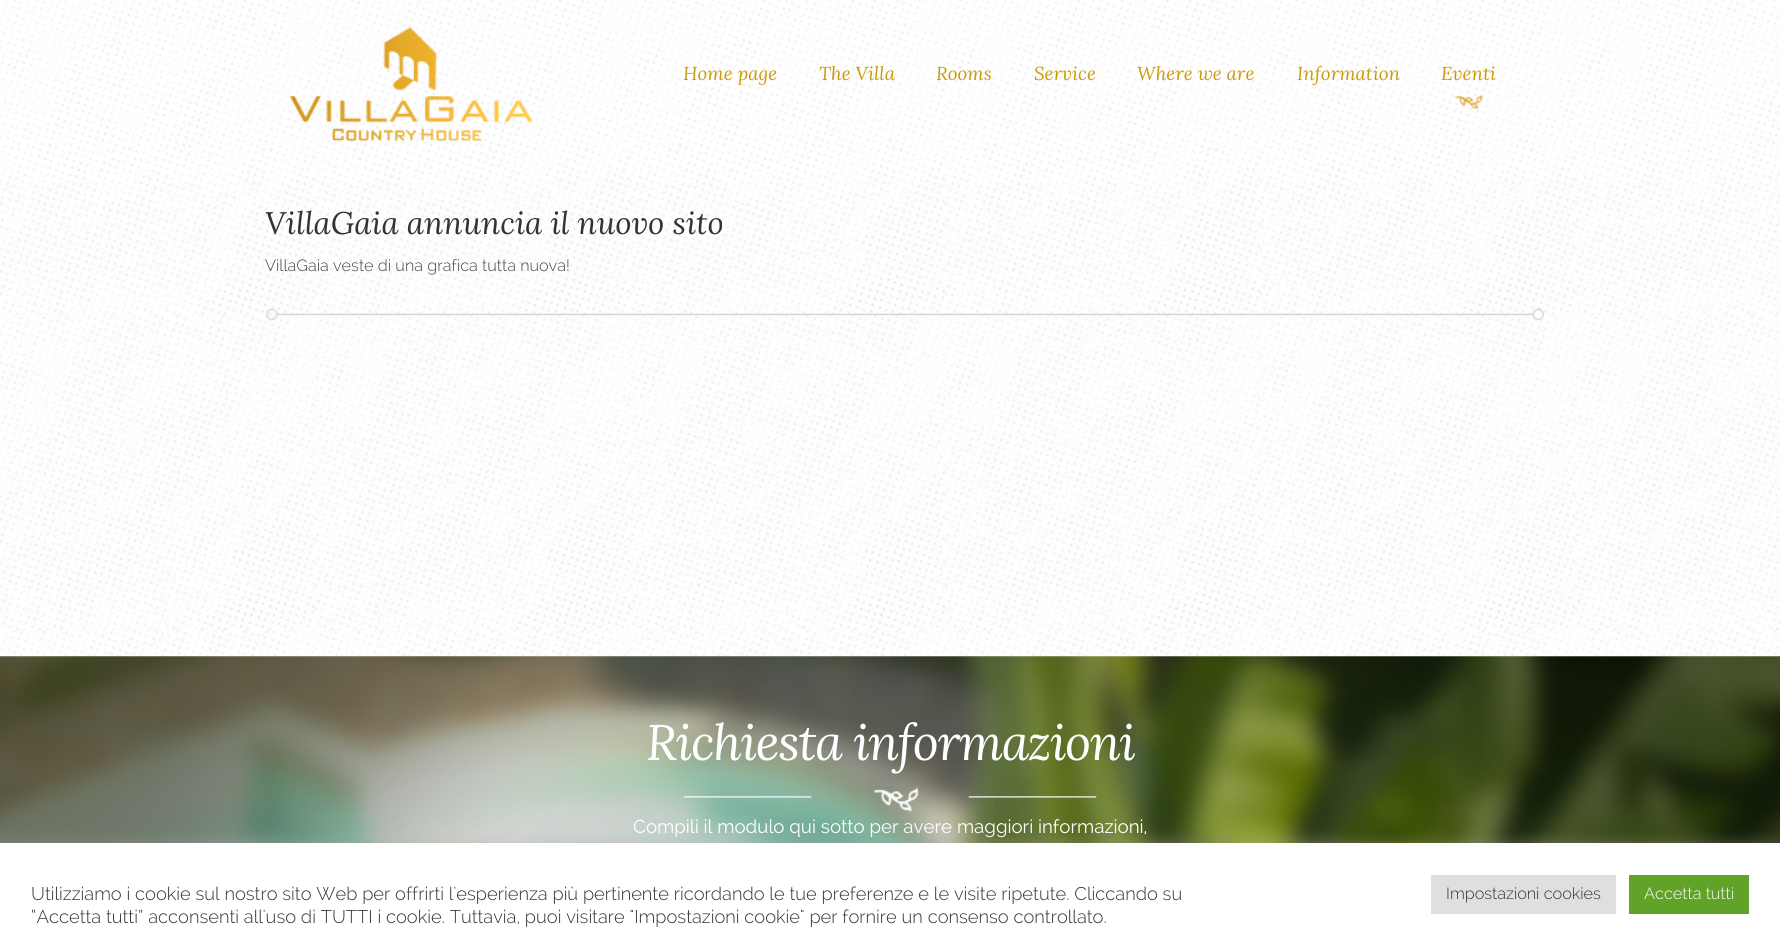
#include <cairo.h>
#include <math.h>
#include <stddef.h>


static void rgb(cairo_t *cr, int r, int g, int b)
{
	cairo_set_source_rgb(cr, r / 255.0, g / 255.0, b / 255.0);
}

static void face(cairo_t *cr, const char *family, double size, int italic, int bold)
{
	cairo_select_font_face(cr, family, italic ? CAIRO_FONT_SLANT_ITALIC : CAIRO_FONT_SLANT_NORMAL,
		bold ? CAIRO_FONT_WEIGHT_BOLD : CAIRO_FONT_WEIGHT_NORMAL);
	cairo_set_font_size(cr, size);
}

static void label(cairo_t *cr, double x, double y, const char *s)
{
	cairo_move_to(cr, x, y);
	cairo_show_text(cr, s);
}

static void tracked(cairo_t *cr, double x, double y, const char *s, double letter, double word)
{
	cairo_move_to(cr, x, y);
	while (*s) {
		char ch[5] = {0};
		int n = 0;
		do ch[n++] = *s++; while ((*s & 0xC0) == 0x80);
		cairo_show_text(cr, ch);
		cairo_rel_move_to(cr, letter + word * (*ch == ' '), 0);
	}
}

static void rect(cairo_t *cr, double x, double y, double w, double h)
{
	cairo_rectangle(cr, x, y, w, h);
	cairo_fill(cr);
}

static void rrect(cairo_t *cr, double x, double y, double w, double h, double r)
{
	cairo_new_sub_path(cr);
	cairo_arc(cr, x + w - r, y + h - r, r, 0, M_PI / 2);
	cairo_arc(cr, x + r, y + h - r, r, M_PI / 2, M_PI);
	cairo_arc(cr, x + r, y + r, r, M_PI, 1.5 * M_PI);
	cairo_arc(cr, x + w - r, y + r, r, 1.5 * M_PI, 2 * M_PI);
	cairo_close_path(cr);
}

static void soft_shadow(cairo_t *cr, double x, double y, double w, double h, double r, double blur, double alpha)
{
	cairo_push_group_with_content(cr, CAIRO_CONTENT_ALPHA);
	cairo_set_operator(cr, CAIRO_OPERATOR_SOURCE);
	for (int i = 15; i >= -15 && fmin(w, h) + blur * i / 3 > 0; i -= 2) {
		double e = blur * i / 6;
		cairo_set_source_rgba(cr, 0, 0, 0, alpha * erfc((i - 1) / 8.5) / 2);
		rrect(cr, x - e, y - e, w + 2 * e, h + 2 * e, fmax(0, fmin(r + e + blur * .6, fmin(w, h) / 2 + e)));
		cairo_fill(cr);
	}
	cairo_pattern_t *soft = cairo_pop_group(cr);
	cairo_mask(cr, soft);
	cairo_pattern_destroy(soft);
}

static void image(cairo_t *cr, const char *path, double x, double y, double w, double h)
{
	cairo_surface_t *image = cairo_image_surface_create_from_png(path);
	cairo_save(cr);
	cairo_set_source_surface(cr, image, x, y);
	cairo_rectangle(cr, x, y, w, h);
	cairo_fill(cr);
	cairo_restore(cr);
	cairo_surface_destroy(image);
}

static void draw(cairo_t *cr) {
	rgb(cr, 255, 255, 255);
	cairo_paint(cr);
	image(cr, "image0.png", 0, 181, 1780, 476);
	image(cr, "image1.png", 0, 0, 1780, 181);
	image(cr, "image2.png", 289, 27, 244, 115);
	face(cr, "Lora", 18.75, 1, 0);
	rgb(cr, 201, 154, 12);
	label(cr, 683, 80, "Home page");
	label(cr, 819, 80, "The Villa");
	label(cr, 936, 80, "Rooms");
	label(cr, 1034, 80, "Service");
	label(cr, 1137, 80, "Where we are");
	label(cr, 1297, 80, "Information");
	label(cr, 1441, 80, "Eventi");
	image(cr, "image3.png", 1455, 95, 28, 14);
	face(cr, "Lora", 31.25, 1, 0);
	rgb(cr, 51, 51, 51);
	label(cr, 265, 234, "VillaGaia annuncia il nuovo sito");
	face(cr, "Raleway Light", 16.25, 0, 0);
	rgb(cr, 69, 69, 69);
	label(cr, 265, 271, "VillaGaia veste di una grafica tutta nuova!");
	image(cr, "image4.png", 266, 308, 1278, 13);
	image(cr, "image5.png", 0, 656, 1780, 187);
	face(cr, "Lora", 50, 1, 0);
	rgb(cr, 255, 255, 255);
	tracked(cr, 646, 760, "Richiesta informazioni", -1.25, 0);
	image(cr, "image6.png", 683, 787, 414, 25);
	face(cr, "Raleway", 18.75, 0, 0);
	label(cr, 633, 833, "Compili il modulo qui sotto per avere maggiori informazioni,");
	rgb(cr, 172, 171, 171);
	soft_shadow(cr, 0, 841, 1780, 103, 0, 6, 0.3);
	rgb(cr, 255, 255, 255);
	rect(cr, 0, 843, 1780, 102);
	face(cr, "Raleway Light", 18.33, 0, 0);
	rgb(cr, 51, 51, 51);
	label(cr, 31, 900, "Utilizziamo i cookie sul nostro sito Web per offrirti l'esperienza più pertinente ricordando le tue preferenze e le visite ripetute. Cliccando su");
	label(cr, 31, 923, "“Accetta tutti” acconsenti all'uso di TUTTI i cookie. Tuttavia, puoi visitare \"Impostazioni cookie\" per fornire un consenso controllato.");
	rgb(cr, 222, 223, 224);
	rect(cr, 1431, 875, 185, 39);
	face(cr, "Raleway Light", 16.25, 0, 0);
	rgb(cr, 51, 51, 51);
	label(cr, 1446, 899, "Impostazioni cookies");
	rgb(cr, 97, 162, 41);
	rect(cr, 1629, 875, 120, 39);
	rgb(cr, 255, 255, 255);
	label(cr, 1644, 899, "Accetta tutti");
}

int main(void) {
	cairo_surface_t *surface = cairo_image_surface_create(CAIRO_FORMAT_RGB24, 1780, 945);
	cairo_t *cr = cairo_create(surface);
	cairo_font_options_t *options = cairo_font_options_create();
	cairo_font_options_set_hint_metrics(options, CAIRO_HINT_METRICS_OFF);
	cairo_font_options_set_hint_style(options, CAIRO_HINT_STYLE_NONE);
	cairo_set_font_options(cr, options);
	cairo_set_miter_limit(cr, 4);
	draw(cr);
	cairo_surface_write_to_png(surface, "render.png");
	cairo_font_options_destroy(options);
	cairo_destroy(cr);
	cairo_surface_destroy(surface);
	return 0;
}
